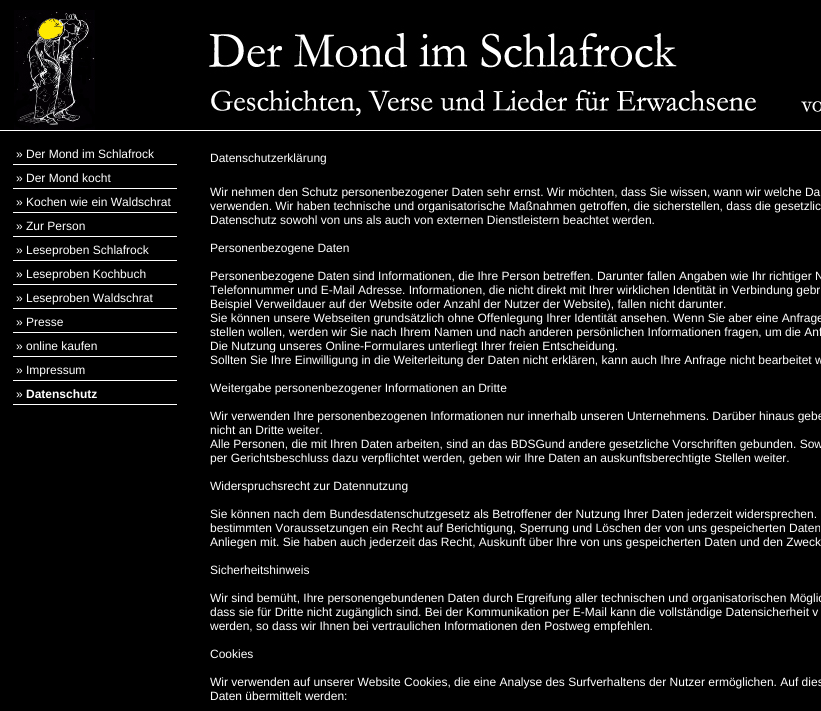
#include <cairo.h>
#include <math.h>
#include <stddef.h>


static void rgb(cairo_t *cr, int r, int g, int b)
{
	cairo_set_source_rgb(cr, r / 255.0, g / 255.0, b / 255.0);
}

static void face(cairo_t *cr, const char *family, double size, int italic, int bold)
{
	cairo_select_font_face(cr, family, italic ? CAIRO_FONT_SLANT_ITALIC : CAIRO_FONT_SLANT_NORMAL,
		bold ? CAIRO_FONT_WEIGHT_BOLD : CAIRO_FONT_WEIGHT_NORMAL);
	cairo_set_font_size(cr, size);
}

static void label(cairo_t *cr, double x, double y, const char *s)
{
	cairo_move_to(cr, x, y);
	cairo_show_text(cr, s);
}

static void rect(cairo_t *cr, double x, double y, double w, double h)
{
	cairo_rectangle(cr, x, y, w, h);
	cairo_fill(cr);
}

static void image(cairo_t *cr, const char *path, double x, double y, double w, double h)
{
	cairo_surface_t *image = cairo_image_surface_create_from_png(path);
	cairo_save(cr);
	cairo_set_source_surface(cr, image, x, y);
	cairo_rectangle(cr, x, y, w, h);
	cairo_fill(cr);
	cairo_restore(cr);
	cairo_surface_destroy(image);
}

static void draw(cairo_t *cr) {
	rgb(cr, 0, 0, 0);
	cairo_paint(cr);
	rgb(cr, 255, 255, 255);
	rect(cr, 0, 130, 821, 1);
	image(cr, "image0.png", 14, 10, 807, 120);
	rect(cr, 13, 164, 164, 1);
	face(cr, "Liberation Sans", 12, 0, 0);
	label(cr, 16, 158, "» Der Mond im Schlafrock");
	rect(cr, 13, 188, 164, 1);
	label(cr, 16, 182, "» Der Mond kocht");
	rect(cr, 13, 212, 164, 1);
	label(cr, 16, 206, "» Kochen wie ein Waldschrat");
	rect(cr, 13, 236, 164, 1);
	label(cr, 16, 230, "» Zur Person");
	rect(cr, 13, 260, 164, 1);
	label(cr, 16, 254, "» Leseproben Schlafrock");
	rect(cr, 13, 284, 164, 1);
	label(cr, 16, 278, "» Leseproben Kochbuch");
	rect(cr, 13, 308, 164, 1);
	label(cr, 16, 302, "» Leseproben Waldschrat");
	rect(cr, 13, 332, 164, 1);
	label(cr, 16, 326, "» Presse");
	rect(cr, 13, 356, 164, 1);
	label(cr, 16, 350, "» online kaufen");
	rect(cr, 13, 380, 164, 1);
	label(cr, 16, 374, "» Impressum");
	rect(cr, 13, 404, 164, 1);
	label(cr, 16, 398, "»");
	face(cr, "Liberation Sans", 12, 0, 1);
	label(cr, 26, 398, "Datenschutz");
	face(cr, "Liberation Sans", 12, 0, 0);
	label(cr, 210, 162, "Datenschutzerklärung");
	label(cr, 210, 196, "Wir nehmen den Schutz personenbezogener Daten sehr ernst. Wir möchten, dass Sie wissen, wann wir welche Da");
	label(cr, 210, 210, "verwenden. Wir haben technische und organisatorische Maßnahmen getroffen, die sicherstellen, dass die gesetzlic");
	label(cr, 210, 224, "Datenschutz sowohl von uns als auch von externen Dienstleistern beachtet werden.");
	label(cr, 210, 252, "Personenbezogene Daten");
	label(cr, 210, 280, "Personenbezogene Daten sind Informationen, die Ihre Person betreffen. Darunter fallen Angaben wie Ihr richtiger N");
	label(cr, 210, 294, "Telefonnummer und E-Mail Adresse. Informationen, die nicht direkt mit Ihrer wirklichen Identität in Verbindung gebr");
	label(cr, 210, 308, "Beispiel Verweildauer auf der Website oder Anzahl der Nutzer der Website), fallen nicht darunter.");
	label(cr, 210, 322, "Sie können unsere Webseiten grundsätzlich ohne Offenlegung Ihrer Identität ansehen. Wenn Sie aber eine Anfrage");
	label(cr, 210, 336, "stellen wollen, werden wir Sie nach Ihrem Namen und nach anderen persönlichen Informationen fragen, um die Anf");
	label(cr, 210, 350, "Die Nutzung unseres Online-Formulares unterliegt Ihrer freien Entscheidung.");
	label(cr, 210, 364, "Sollten Sie Ihre Einwilligung in die Weiterleitung der Daten nicht erklären, kann auch Ihre Anfrage nicht bearbeitet w");
	label(cr, 210, 392, "Weitergabe personenbezogener Informationen an Dritte");
	label(cr, 210, 420, "Wir verwenden Ihre personenbezogenen Informationen nur innerhalb unseren Unternehmens. Darüber hinaus gebe");
	label(cr, 210, 434, "nicht an Dritte weiter.");
	label(cr, 210, 448, "Alle Personen, die mit Ihren Daten arbeiten, sind an das BDSGund andere gesetzliche Vorschriften gebunden. Sow");
	label(cr, 210, 462, "per Gerichtsbeschluss dazu verpflichtet werden, geben wir Ihre Daten an auskunftsberechtigte Stellen weiter.");
	label(cr, 210, 490, "Widerspruchsrecht zur Datennutzung");
	label(cr, 210, 518, "Sie können nach dem Bundesdatenschutzgesetz als Betroffener der Nutzung Ihrer Daten jederzeit widersprechen.");
	label(cr, 210, 532, "bestimmten Voraussetzungen ein Recht auf Berichtigung, Sperrung und Löschen der von uns gespeicherten Daten");
	label(cr, 210, 546, "Anliegen mit. Sie haben auch jederzeit das Recht, Auskunft über Ihre von uns gespeicherten Daten und den Zweck");
	label(cr, 210, 574, "Sicherheitshinweis");
	label(cr, 210, 602, "Wir sind bemüht, Ihre personengebundenen Daten durch Ergreifung aller technischen und organisatorischen Möglic");
	label(cr, 210, 616, "dass sie für Dritte nicht zugänglich sind. Bei der Kommunikation per E-Mail kann die vollständige Datensicherheit v");
	label(cr, 210, 630, "werden, so dass wir Ihnen bei vertraulichen Informationen den Postweg empfehlen.");
	label(cr, 210, 658, "Cookies");
	label(cr, 210, 686, "Wir verwenden auf unserer Website Cookies, die eine Analyse des Surfverhaltens der Nutzer ermöglichen. Auf dies");
	label(cr, 210, 700, "Daten übermittelt werden:");
}

int main(void) {
	cairo_surface_t *surface = cairo_image_surface_create(CAIRO_FORMAT_RGB24, 821, 711);
	cairo_t *cr = cairo_create(surface);
	cairo_font_options_t *options = cairo_font_options_create();
	cairo_font_options_set_hint_metrics(options, CAIRO_HINT_METRICS_OFF);
	cairo_font_options_set_hint_style(options, CAIRO_HINT_STYLE_NONE);
	cairo_set_font_options(cr, options);
	cairo_set_miter_limit(cr, 4);
	draw(cr);
	cairo_surface_write_to_png(surface, "render.png");
	cairo_font_options_destroy(options);
	cairo_destroy(cr);
	cairo_surface_destroy(surface);
	return 0;
}
